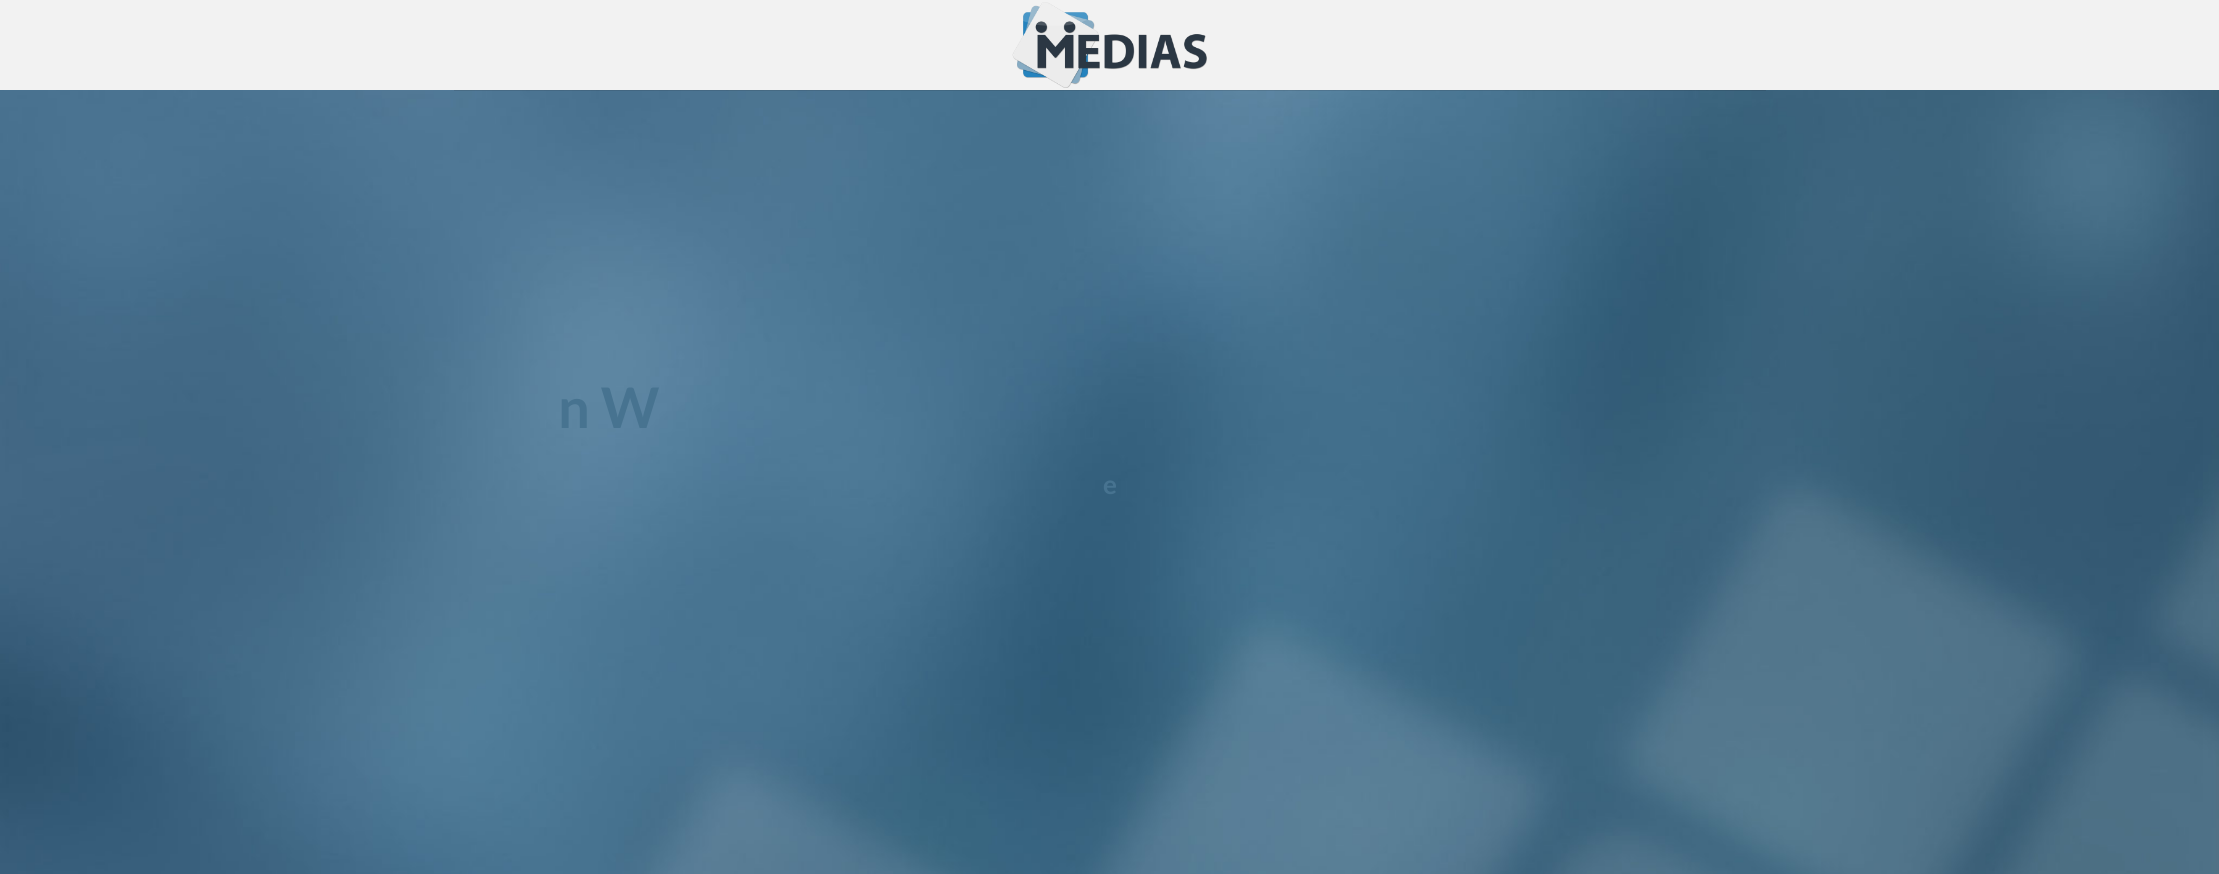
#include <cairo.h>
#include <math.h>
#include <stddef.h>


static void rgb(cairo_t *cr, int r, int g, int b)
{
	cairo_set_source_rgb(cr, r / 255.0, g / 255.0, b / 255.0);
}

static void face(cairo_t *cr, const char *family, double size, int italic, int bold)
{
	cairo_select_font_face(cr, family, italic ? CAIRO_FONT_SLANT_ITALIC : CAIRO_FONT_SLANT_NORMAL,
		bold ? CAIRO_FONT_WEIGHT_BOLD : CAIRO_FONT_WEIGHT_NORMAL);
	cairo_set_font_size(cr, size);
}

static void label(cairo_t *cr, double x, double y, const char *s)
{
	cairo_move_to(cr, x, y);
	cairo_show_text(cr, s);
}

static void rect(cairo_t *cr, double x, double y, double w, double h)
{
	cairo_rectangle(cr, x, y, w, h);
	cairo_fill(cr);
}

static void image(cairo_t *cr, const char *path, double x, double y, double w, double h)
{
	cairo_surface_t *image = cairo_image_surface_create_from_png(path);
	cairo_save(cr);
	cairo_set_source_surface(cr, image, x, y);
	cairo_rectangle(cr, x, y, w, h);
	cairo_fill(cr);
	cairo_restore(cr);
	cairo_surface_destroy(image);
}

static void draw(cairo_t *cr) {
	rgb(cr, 255, 255, 255);
	cairo_paint(cr);
	rgb(cr, 242, 242, 242);
	rect(cr, 0, 0, 2219, 90);
	image(cr, "image0.png", 1012, 2, 195, 86);
	image(cr, "image1.png", 0, 90, 2219, 784);
	cairo_set_source_rgba(cr, 0.078, 0, 0, 0.1);
	rect(cr, 454, 90, 1312, 1);
	face(cr, "Lato", 56, 0, 1);
	rgb(cr, 71, 115, 144);
	label(cr, 558, 428, "n W");
	face(cr, "Lato", 26, 0, 1);
	label(cr, 1103, 494, "e");
}

int main(void) {
	cairo_surface_t *surface = cairo_image_surface_create(CAIRO_FORMAT_RGB24, 2219, 874);
	cairo_t *cr = cairo_create(surface);
	cairo_font_options_t *options = cairo_font_options_create();
	cairo_font_options_set_hint_metrics(options, CAIRO_HINT_METRICS_OFF);
	cairo_font_options_set_hint_style(options, CAIRO_HINT_STYLE_NONE);
	cairo_set_font_options(cr, options);
	cairo_set_miter_limit(cr, 4);
	draw(cr);
	cairo_surface_write_to_png(surface, "render.png");
	cairo_font_options_destroy(options);
	cairo_destroy(cr);
	cairo_surface_destroy(surface);
	return 0;
}
